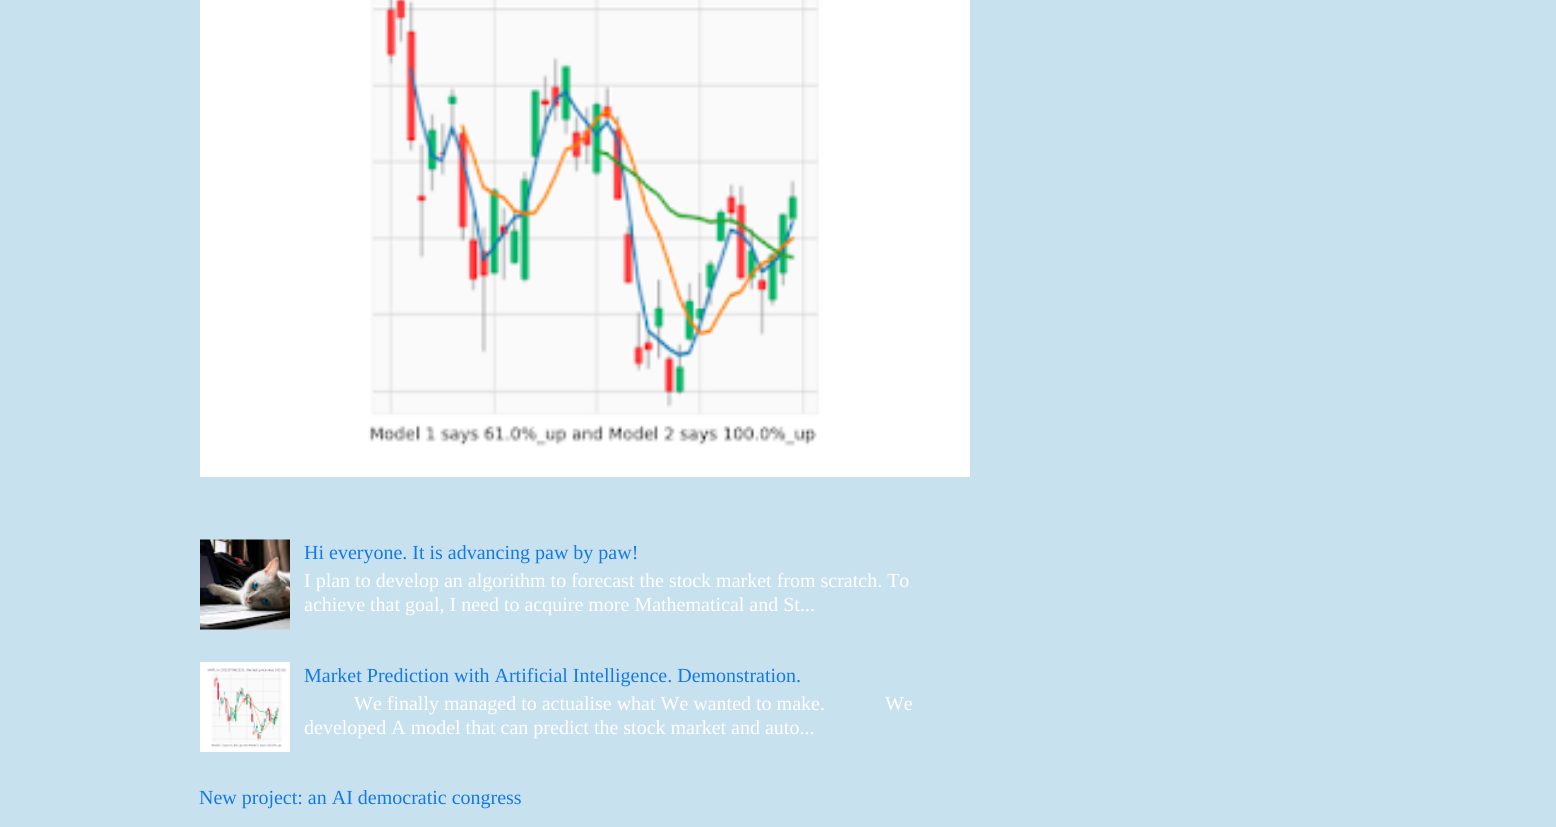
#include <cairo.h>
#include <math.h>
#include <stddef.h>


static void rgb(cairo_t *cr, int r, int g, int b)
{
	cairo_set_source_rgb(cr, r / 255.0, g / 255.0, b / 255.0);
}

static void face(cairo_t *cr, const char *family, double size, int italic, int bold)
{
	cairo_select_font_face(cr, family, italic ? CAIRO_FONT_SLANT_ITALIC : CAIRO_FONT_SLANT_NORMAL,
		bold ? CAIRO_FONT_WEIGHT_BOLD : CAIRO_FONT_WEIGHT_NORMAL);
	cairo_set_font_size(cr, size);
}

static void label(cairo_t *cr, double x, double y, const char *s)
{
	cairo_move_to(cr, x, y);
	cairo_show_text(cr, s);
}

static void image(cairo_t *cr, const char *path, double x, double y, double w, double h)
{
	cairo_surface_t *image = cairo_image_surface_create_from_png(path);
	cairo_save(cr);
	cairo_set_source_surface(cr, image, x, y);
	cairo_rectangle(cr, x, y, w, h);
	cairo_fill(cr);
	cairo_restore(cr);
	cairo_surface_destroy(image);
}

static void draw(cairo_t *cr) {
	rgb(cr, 200, 225, 238);
	cairo_paint(cr);
	image(cr, "image0.png", 200, 0, 770, 477);
	image(cr, "image1.png", 200, 539, 90, 91);
	face(cr, "Liberation Serif", 20, 0, 0);
	rgb(cr, 19, 122, 229);
	label(cr, 304, 559, "Hi everyone. It is advancing paw by paw!");
	rgb(cr, 255, 255, 255);
	label(cr, 304, 587, "I plan to develop an algorithm to forecast the stock market from scratch. To");
	label(cr, 304, 611, "achieve that goal, I need to acquire more Mathematical and St...");
	image(cr, "image2.png", 200, 662, 90, 90);
	rgb(cr, 19, 122, 229);
	label(cr, 304, 682, "Market Prediction with Artificial Intelligence. Demonstration.");
	rgb(cr, 255, 255, 255);
	label(cr, 354, 710, "We finally managed to actualise what We wanted to make.            We");
	label(cr, 304, 734, "developed A model that can predict the stock market and auto...");
	rgb(cr, 19, 122, 229);
	label(cr, 199, 804, "New project: an AI democratic congress");
}

int main(void) {
	cairo_surface_t *surface = cairo_image_surface_create(CAIRO_FORMAT_RGB24, 1556, 827);
	cairo_t *cr = cairo_create(surface);
	cairo_font_options_t *options = cairo_font_options_create();
	cairo_font_options_set_hint_metrics(options, CAIRO_HINT_METRICS_OFF);
	cairo_font_options_set_hint_style(options, CAIRO_HINT_STYLE_NONE);
	cairo_set_font_options(cr, options);
	cairo_set_miter_limit(cr, 4);
	draw(cr);
	cairo_surface_write_to_png(surface, "render.png");
	cairo_font_options_destroy(options);
	cairo_destroy(cr);
	cairo_surface_destroy(surface);
	return 0;
}
